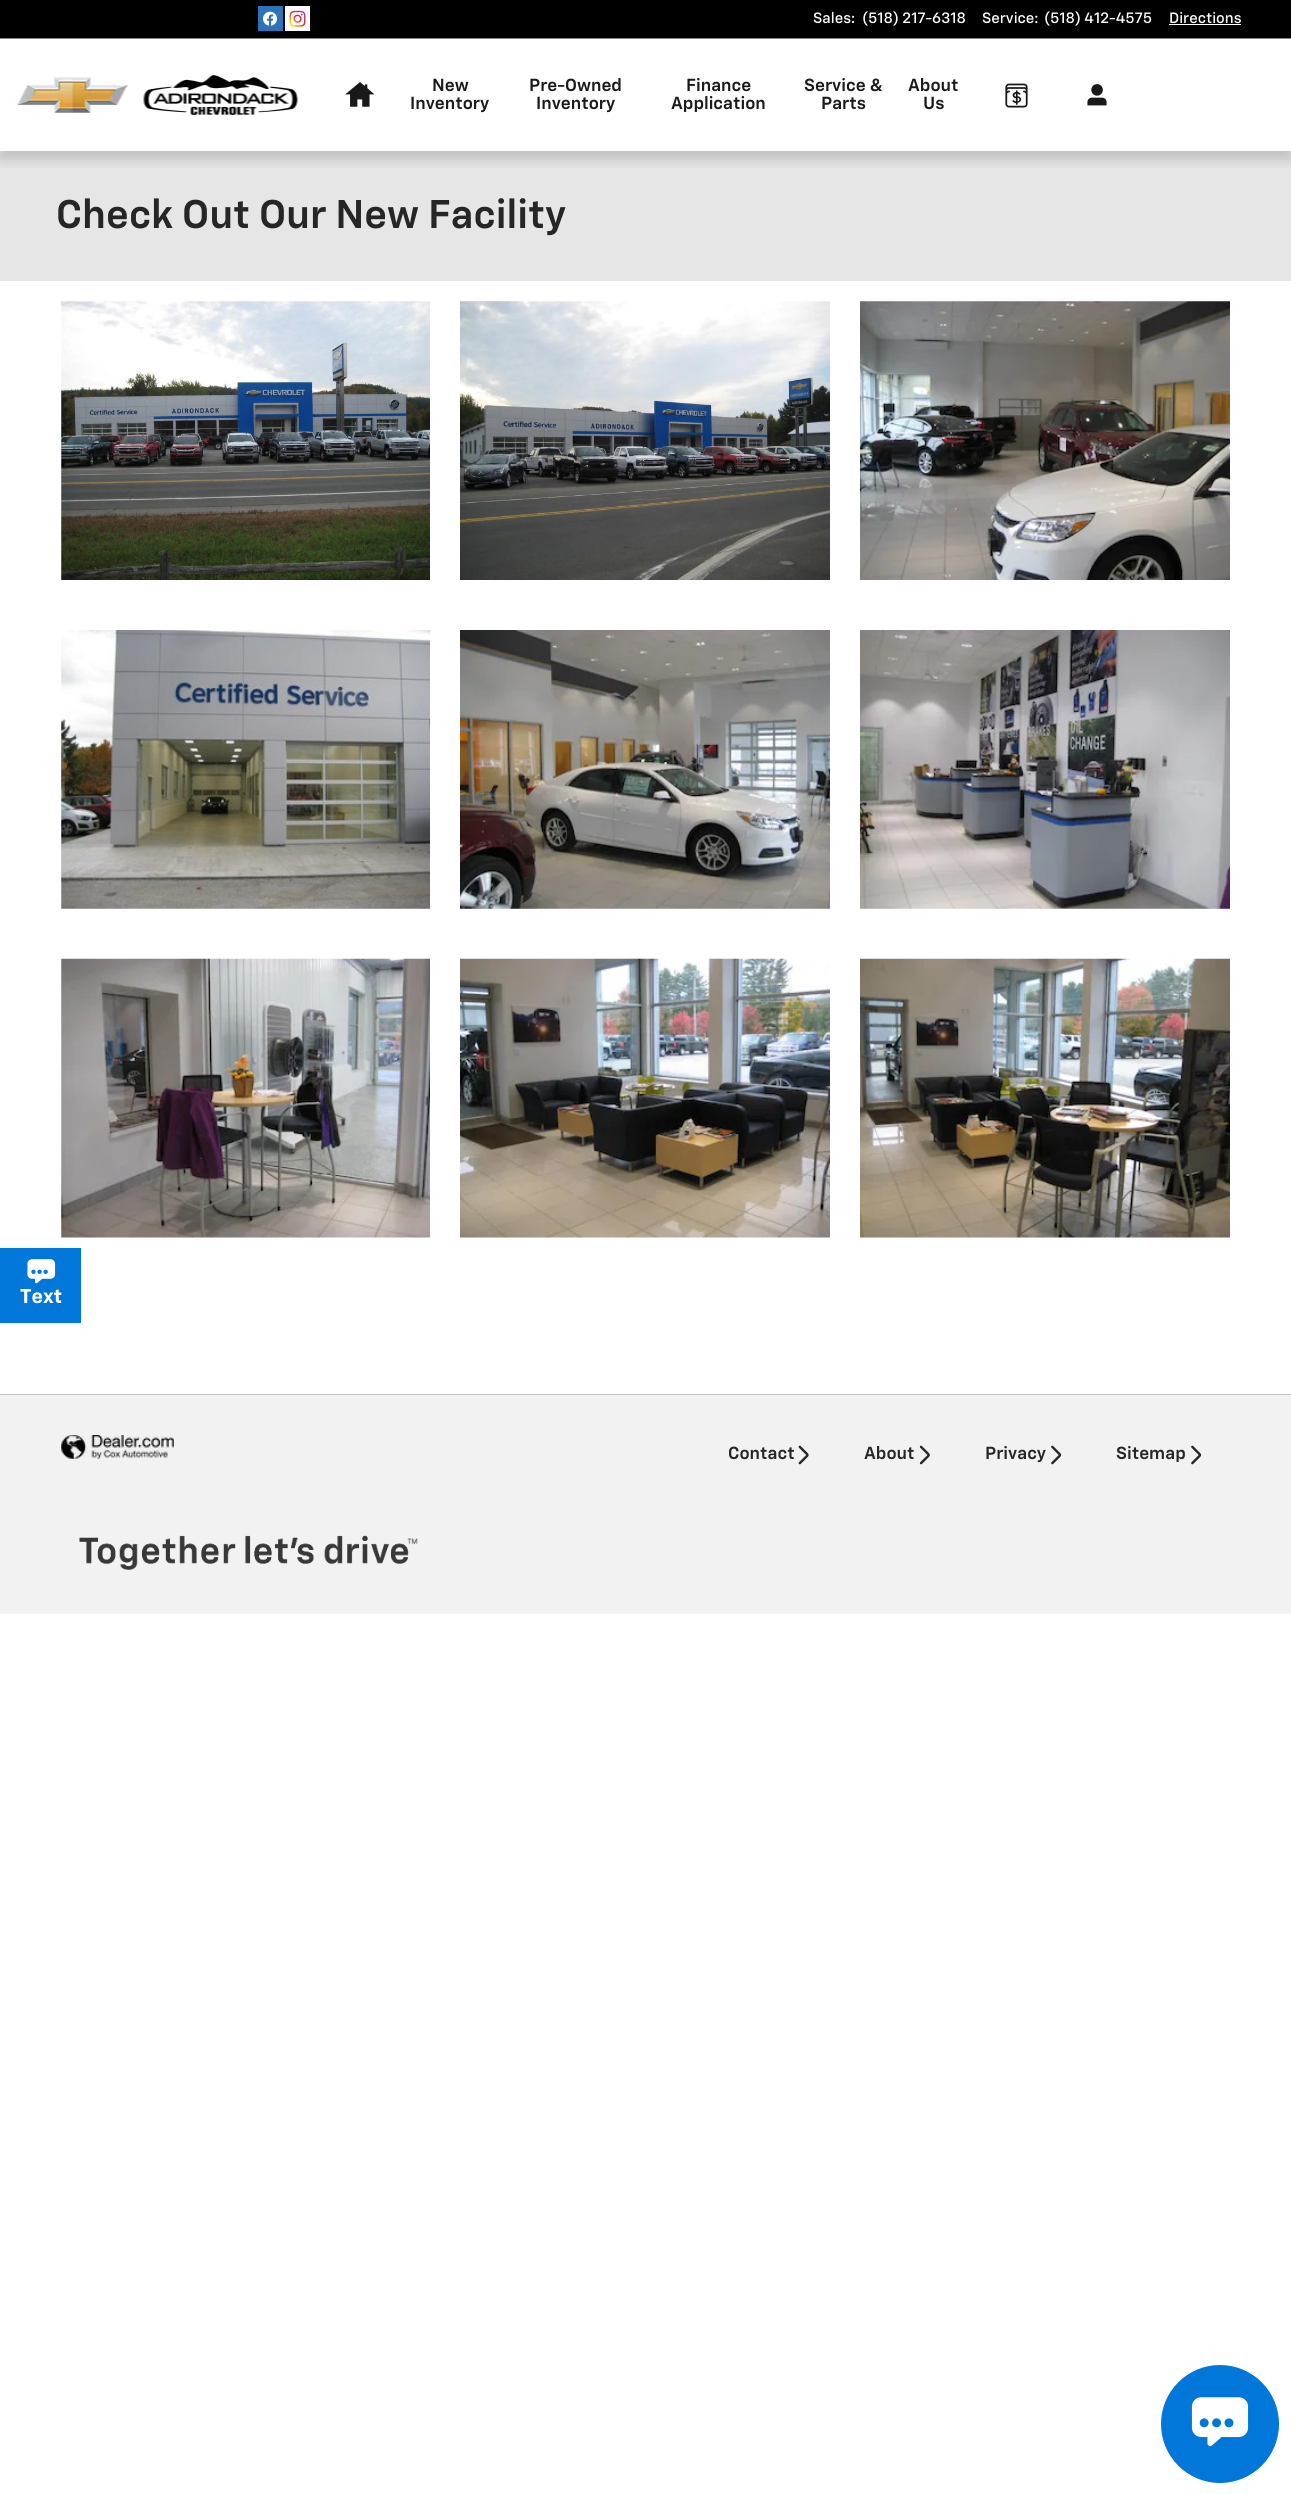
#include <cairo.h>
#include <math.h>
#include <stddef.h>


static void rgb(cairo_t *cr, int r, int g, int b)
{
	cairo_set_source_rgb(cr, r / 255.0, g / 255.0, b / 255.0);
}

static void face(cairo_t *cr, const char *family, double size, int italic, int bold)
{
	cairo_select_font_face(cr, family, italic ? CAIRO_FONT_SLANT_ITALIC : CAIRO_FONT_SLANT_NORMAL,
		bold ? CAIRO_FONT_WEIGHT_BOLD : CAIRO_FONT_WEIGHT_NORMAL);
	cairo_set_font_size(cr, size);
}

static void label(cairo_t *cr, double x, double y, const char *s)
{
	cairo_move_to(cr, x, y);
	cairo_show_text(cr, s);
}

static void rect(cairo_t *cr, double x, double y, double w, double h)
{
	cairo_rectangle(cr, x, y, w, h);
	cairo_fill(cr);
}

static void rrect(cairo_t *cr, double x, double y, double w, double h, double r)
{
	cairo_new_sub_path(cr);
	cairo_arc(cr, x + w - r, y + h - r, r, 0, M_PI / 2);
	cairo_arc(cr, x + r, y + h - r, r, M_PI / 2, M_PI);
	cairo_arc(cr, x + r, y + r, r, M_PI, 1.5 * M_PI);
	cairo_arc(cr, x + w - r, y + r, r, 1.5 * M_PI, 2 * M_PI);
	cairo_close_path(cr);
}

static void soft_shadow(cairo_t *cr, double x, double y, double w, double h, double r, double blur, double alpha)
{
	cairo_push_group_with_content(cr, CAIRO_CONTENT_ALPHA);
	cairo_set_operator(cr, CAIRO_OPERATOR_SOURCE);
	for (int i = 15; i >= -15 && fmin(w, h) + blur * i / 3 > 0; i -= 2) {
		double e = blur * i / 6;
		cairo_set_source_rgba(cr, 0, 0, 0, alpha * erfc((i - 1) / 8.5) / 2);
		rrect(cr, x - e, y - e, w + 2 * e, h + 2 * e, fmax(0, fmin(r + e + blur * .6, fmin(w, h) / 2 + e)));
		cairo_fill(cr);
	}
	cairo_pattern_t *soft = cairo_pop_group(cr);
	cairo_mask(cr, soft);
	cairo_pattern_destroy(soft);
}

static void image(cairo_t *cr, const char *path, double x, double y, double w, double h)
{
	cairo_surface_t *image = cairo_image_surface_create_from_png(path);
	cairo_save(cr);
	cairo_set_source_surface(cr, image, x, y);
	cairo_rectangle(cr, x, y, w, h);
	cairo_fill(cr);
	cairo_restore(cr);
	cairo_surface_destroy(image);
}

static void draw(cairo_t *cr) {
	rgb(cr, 255, 255, 255);
	cairo_paint(cr);
	rgb(cr, 230, 230, 230);
	rect(cr, 0, 151, 1291, 130);
	cairo_save(cr);
	cairo_rectangle(cr, 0, 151, 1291, 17);
	cairo_clip(cr);
	rgb(cr, 0, 0, 0);
	soft_shadow(cr, 0, 8, 1291, 151, 0, 7.5, 0.18);
	cairo_restore(cr);
	rgb(cr, 0, 0, 0);
	rect(cr, 0, 0, 1291, 38);
	rgb(cr, 140, 140, 140);
	rect(cr, 0, 38, 1291, 1);
	image(cr, "image0.png", 258, 6, 25, 25);
	image(cr, "image1.png", 285, 6, 25, 25);
	face(cr, "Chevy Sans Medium", 15, 0, 0);
	rgb(cr, 255, 255, 255);
	label(cr, 813, 23, "Sales:");
	label(cr, 862, 23, "(518) 217-6318");
	label(cr, 982, 23, "Service:");
	label(cr, 1044, 23, "(518) 412-4575");
	label(cr, 1169, 23, "Directions");
	rect(cr, 1169, 24, 72, 1);
	image(cr, "image2.png", 16, 77, 113, 36);
	image(cr, "image3.png", 143, 75, 155, 40);
	image(cr, "image4.png", 345, 82, 30, 25);
	face(cr, "Chevy Sans SemiBold", 17.5, 0, 0);
	rgb(cr, 26, 26, 26);
	label(cr, 432, 91, "New");
	label(cr, 410, 109, "Inventory");
	label(cr, 529, 91, "Pre-Owned");
	label(cr, 536, 109, "Inventory");
	label(cr, 686, 91, "Finance");
	label(cr, 671, 109, "Application");
	label(cr, 804, 91, "Service &");
	label(cr, 821, 109, "Parts");
	label(cr, 908, 91, "About");
	label(cr, 923, 109, "Us");
	image(cr, "image5.png", 1005, 83, 23, 25);
	image(cr, "image6.png", 1087, 84, 20, 22);
	face(cr, "Chevy Sans SemiBold", 40, 0, 0);
	rgb(cr, 38, 38, 38);
	label(cr, 56, 228, "Check Out Our New Facility");
	image(cr, "image7.png", 61, 301, 369, 279);
	image(cr, "image8.png", 460, 301, 370, 279);
	image(cr, "image9.png", 860, 301, 370, 279);
	image(cr, "image10.png", 61, 630, 369, 279);
	image(cr, "image11.png", 460, 630, 370, 279);
	image(cr, "image12.png", 860, 630, 370, 279);
	image(cr, "image13.png", 61, 958, 369, 280);
	image(cr, "image14.png", 460, 958, 370, 280);
	image(cr, "image15.png", 860, 958, 370, 280);
	rgb(cr, 0, 119, 217);
	rect(cr, 0, 1248, 81, 75);
	image(cr, "image16.png", 27, 1259, 29, 25);
	face(cr, "Chevy Sans", 20, 0, 1);
	rgb(cr, 255, 255, 255);
	label(cr, 20, 1303, "Text");
	rgb(cr, 242, 242, 242);
	rect(cr, 0, 1395, 1291, 219);
	rgb(cr, 194, 194, 194);
	rect(cr, 0, 1394, 1291, 1);
	image(cr, "image17.png", 61, 1435, 113, 24);
	face(cr, "Chevy Sans SemiBold", 17.5, 0, 0);
	rgb(cr, 38, 38, 38);
	label(cr, 728, 1459, "Contact");
	image(cr, "image18.png", 798, 1445, 11, 20);
	label(cr, 864, 1459, "About");
	image(cr, "image19.png", 919, 1445, 11, 20);
	label(cr, 985, 1459, "Privacy");
	image(cr, "image20.png", 1051, 1445, 11, 20);
	label(cr, 1116, 1459, "Sitemap");
	image(cr, "image20.png", 1191, 1445, 11, 20);
	image(cr, "image21.png", 79, 1535, 339, 35);
	rgb(cr, 0, 119, 217);
	cairo_arc(cr, 1220, 2424, 57.5, 0, 2 * M_PI);
	cairo_fill_preserve(cr);
	cairo_set_line_width(cr, 3);
	cairo_stroke(cr);
	image(cr, "image22.png", 1191, 2397, 58, 50);
}

int main(void) {
	cairo_surface_t *surface = cairo_image_surface_create(CAIRO_FORMAT_RGB24, 1291, 2494);
	cairo_t *cr = cairo_create(surface);
	cairo_font_options_t *options = cairo_font_options_create();
	cairo_font_options_set_hint_metrics(options, CAIRO_HINT_METRICS_OFF);
	cairo_font_options_set_hint_style(options, CAIRO_HINT_STYLE_NONE);
	cairo_set_font_options(cr, options);
	cairo_set_miter_limit(cr, 4);
	draw(cr);
	cairo_surface_write_to_png(surface, "render.png");
	cairo_font_options_destroy(options);
	cairo_destroy(cr);
	cairo_surface_destroy(surface);
	return 0;
}
